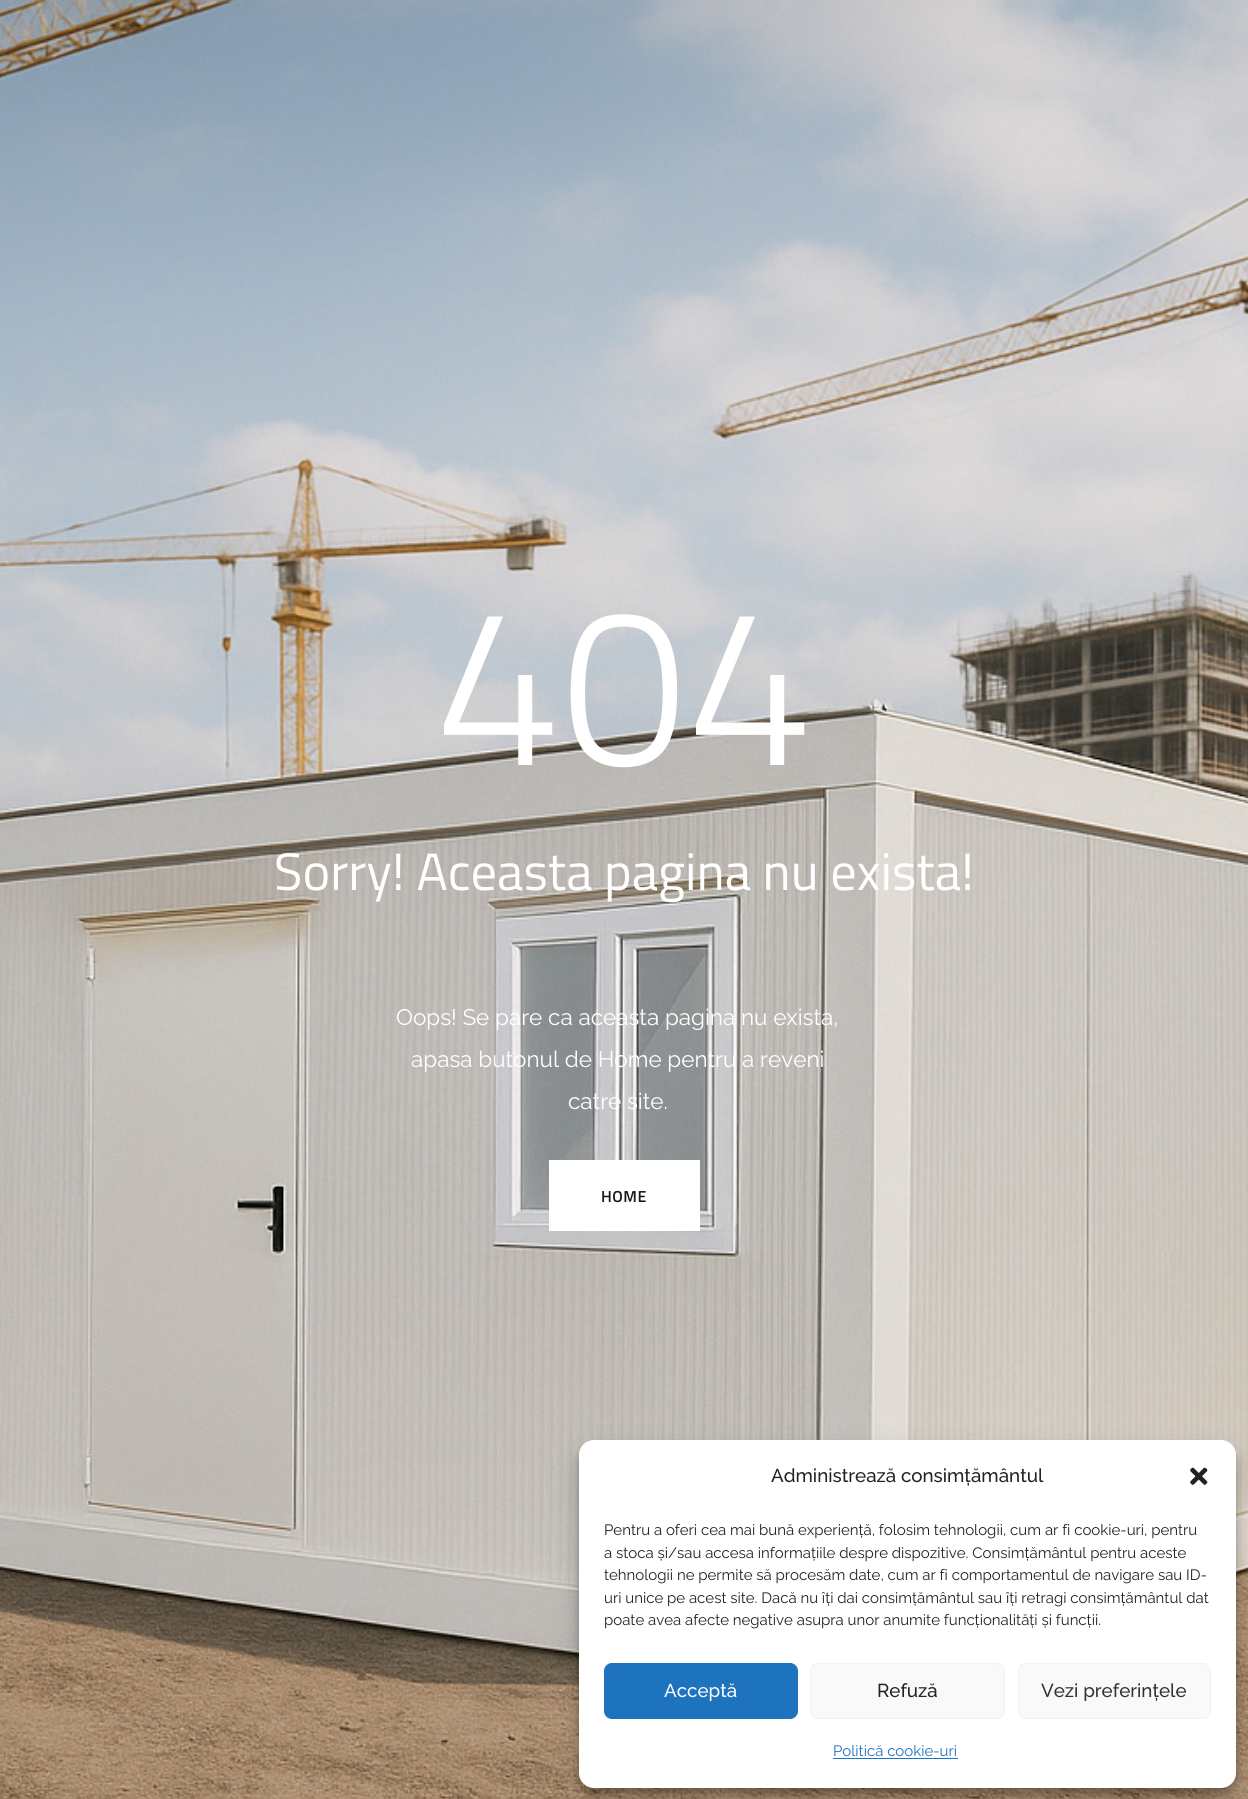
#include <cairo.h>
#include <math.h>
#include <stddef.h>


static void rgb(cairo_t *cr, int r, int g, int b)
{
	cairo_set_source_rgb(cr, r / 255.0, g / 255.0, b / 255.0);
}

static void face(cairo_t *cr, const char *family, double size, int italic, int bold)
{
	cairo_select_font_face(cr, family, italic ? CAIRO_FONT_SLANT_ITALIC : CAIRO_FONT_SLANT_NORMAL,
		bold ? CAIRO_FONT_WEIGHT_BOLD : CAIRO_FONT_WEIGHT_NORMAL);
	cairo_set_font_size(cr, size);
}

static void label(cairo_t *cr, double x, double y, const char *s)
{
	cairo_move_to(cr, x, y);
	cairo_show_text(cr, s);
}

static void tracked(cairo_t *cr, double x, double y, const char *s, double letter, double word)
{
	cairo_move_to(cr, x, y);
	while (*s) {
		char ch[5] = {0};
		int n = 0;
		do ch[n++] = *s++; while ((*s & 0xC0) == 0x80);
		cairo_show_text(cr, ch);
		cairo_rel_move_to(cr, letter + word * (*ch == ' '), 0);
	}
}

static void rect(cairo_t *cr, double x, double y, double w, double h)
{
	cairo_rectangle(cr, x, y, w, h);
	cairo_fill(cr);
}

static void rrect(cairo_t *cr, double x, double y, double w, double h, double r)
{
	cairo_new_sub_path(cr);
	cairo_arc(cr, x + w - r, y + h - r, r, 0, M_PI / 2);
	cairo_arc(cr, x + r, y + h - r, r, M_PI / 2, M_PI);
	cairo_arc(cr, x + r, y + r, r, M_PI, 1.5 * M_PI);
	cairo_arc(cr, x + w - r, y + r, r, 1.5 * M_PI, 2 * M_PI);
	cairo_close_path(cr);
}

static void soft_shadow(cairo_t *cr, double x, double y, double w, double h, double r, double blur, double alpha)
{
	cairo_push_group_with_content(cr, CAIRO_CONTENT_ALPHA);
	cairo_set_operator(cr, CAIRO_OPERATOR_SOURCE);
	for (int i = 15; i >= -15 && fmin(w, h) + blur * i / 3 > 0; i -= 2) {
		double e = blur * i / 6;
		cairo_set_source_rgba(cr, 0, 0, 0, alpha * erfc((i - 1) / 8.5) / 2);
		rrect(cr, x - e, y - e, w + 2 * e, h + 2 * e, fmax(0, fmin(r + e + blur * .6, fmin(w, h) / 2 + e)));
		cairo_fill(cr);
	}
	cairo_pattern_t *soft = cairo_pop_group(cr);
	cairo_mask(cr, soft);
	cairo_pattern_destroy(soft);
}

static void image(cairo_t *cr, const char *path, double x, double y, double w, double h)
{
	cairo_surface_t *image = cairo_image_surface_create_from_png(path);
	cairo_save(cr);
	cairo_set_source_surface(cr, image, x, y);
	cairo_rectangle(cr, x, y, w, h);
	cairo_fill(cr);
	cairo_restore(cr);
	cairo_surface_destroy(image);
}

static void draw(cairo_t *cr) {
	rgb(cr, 255, 255, 255);
	cairo_paint(cr);
	image(cr, "image0.png", 0, 0, 1248, 1799);
	face(cr, "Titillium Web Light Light", 225, 0, 0);
	rgb(cr, 255, 255, 255);
	label(cr, 435, 765, "404");
	face(cr, "Titillium Web", 52.5, 0, 0);
	label(cr, 274, 890, "Sorry! Aceasta pagina nu exista!");
	face(cr, "Raleway", 22.5, 0, 0);
	label(cr, 396, 1025, "Oops! Se pare ca aceasta pagina nu exista,");
	label(cr, 411, 1067, "apasa butonul de Home pentru a reveni");
	label(cr, 568, 1109, "catre site.");
	rect(cr, 549, 1160, 151, 71);
	face(cr, "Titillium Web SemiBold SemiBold", 16, 0, 0);
	rgb(cr, 26, 26, 26);
	tracked(cr, 601, 1202, "HOME", 0.5, 0);
	rgb(cr, 0, 0, 0);
	soft_shadow(cr, 579, 1448, 657, 347, 15, 4, 0.23);
	soft_shadow(cr, 579, 1453, 657, 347, 15, 12.5, 0.19);
	rgb(cr, 255, 255, 255);
	rrect(cr, 579, 1440, 657, 348, 15);
	cairo_fill(cr);
	face(cr, "Raleway Medium", 18.75, 0, 0);
	rgb(cr, 34, 34, 34);
	label(cr, 771, 1482, "Administrează consimțământul");
	image(cr, "image1.png", 1190, 1467, 18, 18);
	face(cr, "Raleway", 15, 0, 0);
	label(cr, 604, 1535, "Pentru a oferi cea mai bună experiență, folosim tehnologii, cum ar fi cookie-uri, pentru");
	label(cr, 604, 1558, "a stoca și/sau accesa informațiile despre dispozitive. Consimțământul pentru aceste");
	label(cr, 604, 1580, "tehnologii ne permite să procesăm date, cum ar fi comportamentul de navigare sau ID-");
	label(cr, 604, 1603, "uri unice pe acest site. Dacă nu îți dai consimțământul sau îți retragi consimțământul dat");
	label(cr, 604, 1625, "poate avea afecte negative asupra unor anumite funcționalități și funcții.");
	rgb(cr, 30, 115, 190);
	rrect(cr, 604.5, 1663.5, 193, 55, 7.5);
	cairo_fill_preserve(cr);
	cairo_set_line_width(cr, 1);
	cairo_stroke(cr);
	face(cr, "Raleway Medium", 18.75, 0, 0);
	rgb(cr, 255, 255, 255);
	label(cr, 664, 1697, "Acceptă");
	rgb(cr, 249, 249, 249);
	rrect(cr, 810.5, 1663.5, 194, 55, 7.5);
	cairo_fill_preserve(cr);
	rgb(cr, 242, 242, 242);
	cairo_stroke(cr);
	rgb(cr, 34, 34, 34);
	label(cr, 877, 1697, "Refuză");
	rgb(cr, 249, 249, 249);
	rrect(cr, 1018.5, 1663.5, 192, 55, 7.5);
	cairo_fill_preserve(cr);
	rgb(cr, 242, 242, 242);
	cairo_stroke(cr);
	rgb(cr, 51, 51, 51);
	label(cr, 1041, 1697, "Vezi preferințele");
	face(cr, "Raleway", 15, 0, 0);
	rgb(cr, 30, 115, 190);
	label(cr, 833, 1756, "Politică cookie-uri");
	rect(cr, 833, 1758, 125, 1);
}

int main(void) {
	cairo_surface_t *surface = cairo_image_surface_create(CAIRO_FORMAT_RGB24, 1248, 1799);
	cairo_t *cr = cairo_create(surface);
	cairo_font_options_t *options = cairo_font_options_create();
	cairo_font_options_set_hint_metrics(options, CAIRO_HINT_METRICS_OFF);
	cairo_font_options_set_hint_style(options, CAIRO_HINT_STYLE_NONE);
	cairo_set_font_options(cr, options);
	cairo_set_miter_limit(cr, 4);
	draw(cr);
	cairo_surface_write_to_png(surface, "render.png");
	cairo_font_options_destroy(options);
	cairo_destroy(cr);
	cairo_surface_destroy(surface);
	return 0;
}
